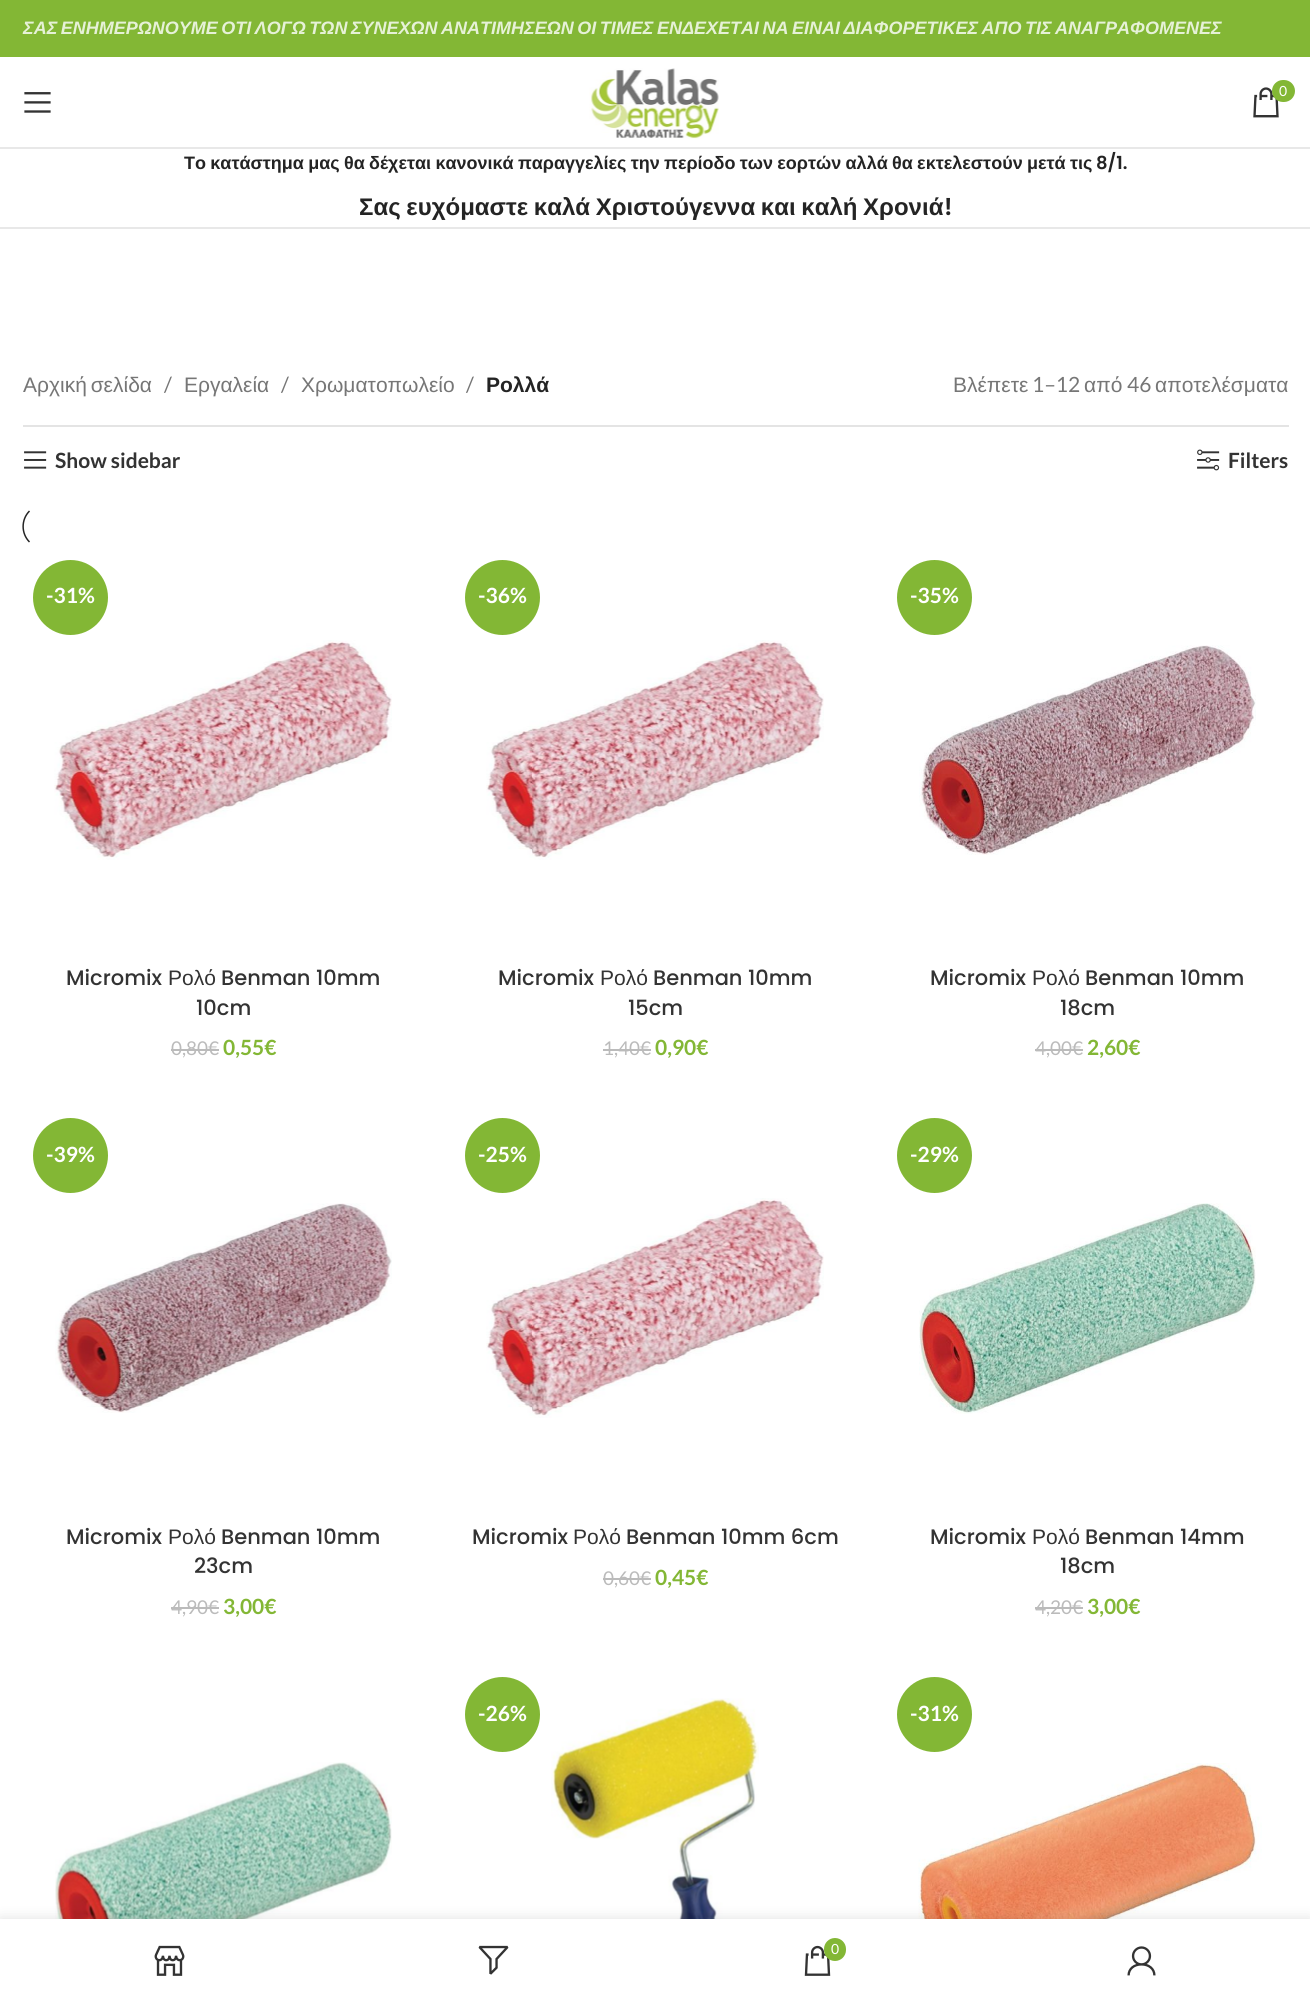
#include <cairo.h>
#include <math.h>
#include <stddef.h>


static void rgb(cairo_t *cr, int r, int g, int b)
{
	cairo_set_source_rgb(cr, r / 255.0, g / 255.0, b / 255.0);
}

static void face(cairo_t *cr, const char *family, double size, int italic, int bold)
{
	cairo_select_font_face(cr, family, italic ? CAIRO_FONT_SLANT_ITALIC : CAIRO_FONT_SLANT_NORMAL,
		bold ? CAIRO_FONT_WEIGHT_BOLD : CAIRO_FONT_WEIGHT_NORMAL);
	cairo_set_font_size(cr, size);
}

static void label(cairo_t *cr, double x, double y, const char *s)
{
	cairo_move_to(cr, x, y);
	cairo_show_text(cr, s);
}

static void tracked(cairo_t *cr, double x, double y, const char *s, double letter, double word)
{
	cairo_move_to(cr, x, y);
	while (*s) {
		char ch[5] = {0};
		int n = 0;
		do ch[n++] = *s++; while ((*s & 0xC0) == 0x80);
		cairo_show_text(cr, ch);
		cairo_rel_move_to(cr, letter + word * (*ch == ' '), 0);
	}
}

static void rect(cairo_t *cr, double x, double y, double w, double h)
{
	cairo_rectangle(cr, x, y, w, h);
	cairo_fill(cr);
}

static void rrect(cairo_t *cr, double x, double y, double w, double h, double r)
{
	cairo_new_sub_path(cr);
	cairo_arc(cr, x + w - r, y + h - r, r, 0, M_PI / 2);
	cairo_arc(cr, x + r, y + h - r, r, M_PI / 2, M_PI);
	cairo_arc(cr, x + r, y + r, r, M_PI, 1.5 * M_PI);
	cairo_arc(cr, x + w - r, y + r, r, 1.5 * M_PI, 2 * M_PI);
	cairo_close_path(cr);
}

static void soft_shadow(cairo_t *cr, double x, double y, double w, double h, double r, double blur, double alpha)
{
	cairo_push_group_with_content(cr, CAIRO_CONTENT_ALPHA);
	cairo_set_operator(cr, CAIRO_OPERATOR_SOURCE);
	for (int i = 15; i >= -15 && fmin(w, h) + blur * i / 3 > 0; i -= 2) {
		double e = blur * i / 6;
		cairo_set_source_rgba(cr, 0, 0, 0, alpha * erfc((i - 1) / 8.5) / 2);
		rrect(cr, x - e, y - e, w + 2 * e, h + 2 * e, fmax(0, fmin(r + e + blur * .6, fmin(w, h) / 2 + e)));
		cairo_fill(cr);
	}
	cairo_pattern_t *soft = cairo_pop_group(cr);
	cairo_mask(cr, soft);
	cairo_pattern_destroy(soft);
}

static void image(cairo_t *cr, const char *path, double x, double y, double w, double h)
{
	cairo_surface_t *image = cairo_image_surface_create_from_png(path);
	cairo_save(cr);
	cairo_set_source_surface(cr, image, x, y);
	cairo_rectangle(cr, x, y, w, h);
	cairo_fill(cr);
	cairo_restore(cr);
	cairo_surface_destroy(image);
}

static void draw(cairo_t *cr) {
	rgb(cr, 255, 255, 255);
	cairo_paint(cr);
	rgb(cr, 131, 183, 53);
	rect(cr, 0, 0, 1310, 57);
	face(cr, "Liberation Sans", 18, 1, 1);
	rgb(cr, 230, 241, 215);
	tracked(cr, 23, 34, "ΣΑΣ ΕΝΗΜΕΡΩΝΟΥΜΕ ΟΤΙ ΛΟΓΩ ΤΩΝ ΣΥΝΕΧΩΝ ΑΝΑΤΙΜΗΣΕΩΝ ΟΙ ΤΙΜΕΣ ΕΝΔΕΧΕΤΑΙ ΝΑ ΕΙΝΑΙ ΔΙΑΦΟΡΕΤΙΚΕΣ ΑΠΟ ΤΙΣ ΑΝΑΓΡΑΦΟΜΕΝΕΣ", 0, -1.5);
	rgb(cr, 232, 232, 232);
	rect(cr, 0, 147, 1310, 2);
	image(cr, "image0.png", 24, 92, 27, 21);
	image(cr, "image1.png", 589, 68, 130, 71);
	image(cr, "image2.png", 1253, 87, 26, 31);
	rgb(cr, 131, 183, 53);
	rrect(cr, 1272, 80, 23, 22, 11);
	cairo_fill(cr);
	face(cr, "Lato", 14, 0, 0);
	rgb(cr, 255, 255, 255);
	label(cr, 1279, 96, "0");
	rgb(cr, 232, 232, 232);
	rect(cr, 0, 227, 1310, 2);
	face(cr, "Liberation Sans", 18, 0, 1);
	rgb(cr, 36, 36, 36);
	tracked(cr, 184, 169, "Το κατάστημα μας θα δέχεται κανονικά παραγγελίες την περίοδο των εορτών αλλά θα εκτελεστούν μετά τις", 0, -0.7);
	face(cr, "Poppins SemiBold", 18, 0, 0);
	label(cr, 1096, 169, "8/1.");
	face(cr, "Liberation Sans", 24, 0, 1);
	tracked(cr, 359, 215, "Σας ευχόμαστε καλά Χριστούγεννα και καλή Χρονιά", 0, -1);
	face(cr, "Poppins SemiBold", 24, 0, 0);
	label(cr, 944, 215, "!");
	rgb(cr, 228, 228, 228);
	rect(cr, 23, 425, 1266, 2);
	face(cr, "Liberation Sans", 21, 0, 0);
	rgb(cr, 118, 118, 118);
	tracked(cr, 23, 392, "Αρχική σελίδα", 0, -2);
	face(cr, "Lato", 21, 0, 0);
	label(cr, 164, 392, "/");
	face(cr, "Liberation Sans", 21, 0, 0);
	label(cr, 184, 392, "Εργαλεία");
	face(cr, "Lato", 21, 0, 0);
	label(cr, 281, 392, "/");
	face(cr, "Liberation Sans", 21, 0, 0);
	label(cr, 301, 392, "Χρωματοπωλείο");
	face(cr, "Lato", 21, 0, 0);
	label(cr, 466, 392, "/");
	face(cr, "Liberation Sans", 21, 0, 1);
	rgb(cr, 36, 36, 36);
	label(cr, 486, 392, "Ρολλά");
	face(cr, "Liberation Sans", 21, 0, 0);
	rgb(cr, 118, 118, 118);
	label(cr, 953, 392, "Βλέπετε");
	face(cr, "Lato", 21, 0, 0);
	label(cr, 1032, 392, "1–12");
	face(cr, "Liberation Sans", 21, 0, 0);
	label(cr, 1084, 392, "από");
	face(cr, "Lato", 21, 0, 0);
	label(cr, 1127, 392, "46");
	face(cr, "Liberation Sans", 21, 0, 0);
	label(cr, 1155, 392, "αποτελέσματα");
	image(cr, "image3.png", 24, 451, 23, 18);
	face(cr, "Lato", 21, 0, 1);
	rgb(cr, 51, 51, 51);
	label(cr, 55, 468, "Show sidebar");
	image(cr, "image4.png", 1197, 449, 23, 22);
	label(cr, 1228, 468, "Filters");
	cairo_new_path(cr);
	cairo_move_to(cr, 29.5, 542);
	cairo_curve_to(cr, 21, 533.5, 21, 519.5, 29.5, 511);
	rgb(cr, 36, 36, 36);
	cairo_set_line_width(cr, 1.5);
	cairo_stroke(cr);
	rgb(cr, 131, 183, 53);
	cairo_arc(cr, 70.5, 597.5, 37.5, 0, 2 * M_PI);
	cairo_fill(cr);
	rgb(cr, 255, 255, 255);
	label(cr, 46, 603, "-31%");
	image(cr, "image5.png", 54, 640, 338, 220);
	face(cr, "Poppins Medium", 21, 0, 0);
	rgb(cr, 51, 51, 51);
	label(cr, 66, 985, "Micromix");
	face(cr, "Liberation Sans", 21, 0, 0);
	label(cr, 168, 985, "Ρολό");
	face(cr, "Poppins Medium", 21, 0, 0);
	label(cr, 221, 985, "Benman 10mm");
	label(cr, 196, 1015, "10cm");
	face(cr, "Lato", 19, 0, 0);
	rgb(cr, 187, 187, 187);
	label(cr, 171, 1055, "0,80€");
	rect(cr, 171, 1049, 48, 2);
	face(cr, "Lato", 21, 0, 1);
	rgb(cr, 131, 183, 53);
	label(cr, 223, 1055, "0,55€");
	cairo_new_path(cr);
	cairo_arc(cr, 502.5, 597.5, 37.5, 0, 2 * M_PI);
	cairo_fill(cr);
	rgb(cr, 255, 255, 255);
	label(cr, 478, 603, "-36%");
	image(cr, "image6.png", 486, 640, 338, 220);
	face(cr, "Poppins Medium", 21, 0, 0);
	rgb(cr, 51, 51, 51);
	label(cr, 498, 985, "Micromix");
	face(cr, "Liberation Sans", 21, 0, 0);
	label(cr, 600, 985, "Ρολό");
	face(cr, "Poppins Medium", 21, 0, 0);
	label(cr, 653, 985, "Benman 10mm");
	label(cr, 628, 1015, "15cm");
	face(cr, "Lato", 19, 0, 0);
	rgb(cr, 187, 187, 187);
	label(cr, 603, 1055, "1,40€");
	rect(cr, 603, 1049, 48, 2);
	face(cr, "Lato", 21, 0, 1);
	rgb(cr, 131, 183, 53);
	label(cr, 655, 1055, "0,90€");
	cairo_new_path(cr);
	cairo_arc(cr, 934.5, 597.5, 37.5, 0, 2 * M_PI);
	cairo_fill(cr);
	rgb(cr, 255, 255, 255);
	label(cr, 910, 603, "-35%");
	image(cr, "image7.png", 919, 645, 337, 210);
	face(cr, "Poppins Medium", 21, 0, 0);
	rgb(cr, 51, 51, 51);
	label(cr, 930, 985, "Micromix");
	face(cr, "Liberation Sans", 21, 0, 0);
	label(cr, 1032, 985, "Ρολό");
	face(cr, "Poppins Medium", 21, 0, 0);
	label(cr, 1085, 985, "Benman 10mm");
	label(cr, 1060, 1015, "18cm");
	face(cr, "Lato", 19, 0, 0);
	rgb(cr, 187, 187, 187);
	label(cr, 1035, 1055, "4,00€");
	rect(cr, 1035, 1049, 48, 2);
	face(cr, "Lato", 21, 0, 1);
	rgb(cr, 131, 183, 53);
	label(cr, 1087, 1055, "2,60€");
	cairo_new_path(cr);
	cairo_arc(cr, 70.5, 1155.5, 37.5, 0, 2 * M_PI);
	cairo_fill(cr);
	rgb(cr, 255, 255, 255);
	label(cr, 46, 1162, "-39%");
	image(cr, "image8.png", 55, 1203, 337, 210);
	face(cr, "Poppins Medium", 21, 0, 0);
	rgb(cr, 51, 51, 51);
	label(cr, 66, 1544, "Micromix");
	face(cr, "Liberation Sans", 21, 0, 0);
	label(cr, 168, 1544, "Ρολό");
	face(cr, "Poppins Medium", 21, 0, 0);
	label(cr, 221, 1544, "Benman 10mm");
	label(cr, 194, 1573, "23cm");
	face(cr, "Lato", 19, 0, 0);
	rgb(cr, 187, 187, 187);
	label(cr, 171, 1614, "4,90€");
	rect(cr, 171, 1607, 48, 2);
	face(cr, "Lato", 21, 0, 1);
	rgb(cr, 131, 183, 53);
	label(cr, 223, 1614, "3,00€");
	cairo_new_path(cr);
	cairo_arc(cr, 502.5, 1155.5, 37.5, 0, 2 * M_PI);
	cairo_fill(cr);
	rgb(cr, 255, 255, 255);
	label(cr, 478, 1162, "-25%");
	image(cr, "image6.png", 486, 1198, 338, 220);
	face(cr, "Poppins Medium", 21, 0, 0);
	rgb(cr, 51, 51, 51);
	label(cr, 472, 1544, "Micromix");
	face(cr, "Liberation Sans", 21, 0, 0);
	label(cr, 573, 1544, "Ρολό");
	face(cr, "Poppins Medium", 21, 0, 0);
	label(cr, 626, 1544, "Benman 10mm 6cm");
	face(cr, "Lato", 19, 0, 0);
	rgb(cr, 187, 187, 187);
	label(cr, 603, 1585, "0,60€");
	rect(cr, 603, 1578, 48, 2);
	face(cr, "Lato", 21, 0, 1);
	rgb(cr, 131, 183, 53);
	label(cr, 655, 1585, "0,45€");
	cairo_new_path(cr);
	cairo_arc(cr, 934.5, 1155.5, 37.5, 0, 2 * M_PI);
	cairo_fill(cr);
	rgb(cr, 255, 255, 255);
	label(cr, 910, 1162, "-29%");
	image(cr, "image9.png", 919, 1203, 337, 211);
	face(cr, "Poppins Medium", 21, 0, 0);
	rgb(cr, 51, 51, 51);
	label(cr, 930, 1544, "Micromix");
	face(cr, "Liberation Sans", 21, 0, 0);
	label(cr, 1032, 1544, "Ρολό");
	face(cr, "Poppins Medium", 21, 0, 0);
	label(cr, 1085, 1544, "Benman 14mm");
	label(cr, 1060, 1573, "18cm");
	face(cr, "Lato", 19, 0, 0);
	rgb(cr, 187, 187, 187);
	label(cr, 1035, 1614, "4,20€");
	rect(cr, 1035, 1607, 48, 2);
	face(cr, "Lato", 21, 0, 1);
	rgb(cr, 131, 183, 53);
	label(cr, 1087, 1614, "3,00€");
	cairo_new_path(cr);
	cairo_arc(cr, 502.5, 1714.5, 37.5, 0, 2 * M_PI);
	cairo_fill(cr);
	rgb(cr, 255, 255, 255);
	label(cr, 478, 1721, "-26%");
	image(cr, "image10.png", 551, 1698, 208, 221);
	rgb(cr, 131, 183, 53);
	cairo_arc(cr, 934.5, 1714.5, 37.5, 0, 2 * M_PI);
	cairo_fill(cr);
	rgb(cr, 255, 255, 255);
	label(cr, 910, 1721, "-31%");
	image(cr, "image11.png", 918, 1763, 344, 156);
	image(cr, "image12.png", 55, 1762, 337, 157);
	rgb(cr, 0, 0, 0);
	soft_shadow(cr, 0, 1919, 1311, 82, 0, 7, 0.12);
	rgb(cr, 255, 255, 255);
	rect(cr, 0, 1919, 1310, 81);
	image(cr, "image13.png", 154, 1945, 31, 31);
	image(cr, "image14.png", 478, 1945, 31, 30);
	image(cr, "image15.png", 804, 1945, 27, 31);
	rgb(cr, 131, 183, 53);
	rrect(cr, 824, 1938, 22, 23, 11);
	cairo_fill(cr);
	face(cr, "Lato", 14, 0, 0);
	rgb(cr, 255, 255, 255);
	label(cr, 831, 1954, "0");
	image(cr, "image16.png", 1127, 1946, 29, 30);
}

int main(void) {
	cairo_surface_t *surface = cairo_image_surface_create(CAIRO_FORMAT_RGB24, 1310, 2000);
	cairo_t *cr = cairo_create(surface);
	cairo_font_options_t *options = cairo_font_options_create();
	cairo_font_options_set_hint_metrics(options, CAIRO_HINT_METRICS_OFF);
	cairo_font_options_set_hint_style(options, CAIRO_HINT_STYLE_NONE);
	cairo_set_font_options(cr, options);
	cairo_set_miter_limit(cr, 4);
	draw(cr);
	cairo_surface_write_to_png(surface, "render.png");
	cairo_font_options_destroy(options);
	cairo_destroy(cr);
	cairo_surface_destroy(surface);
	return 0;
}
